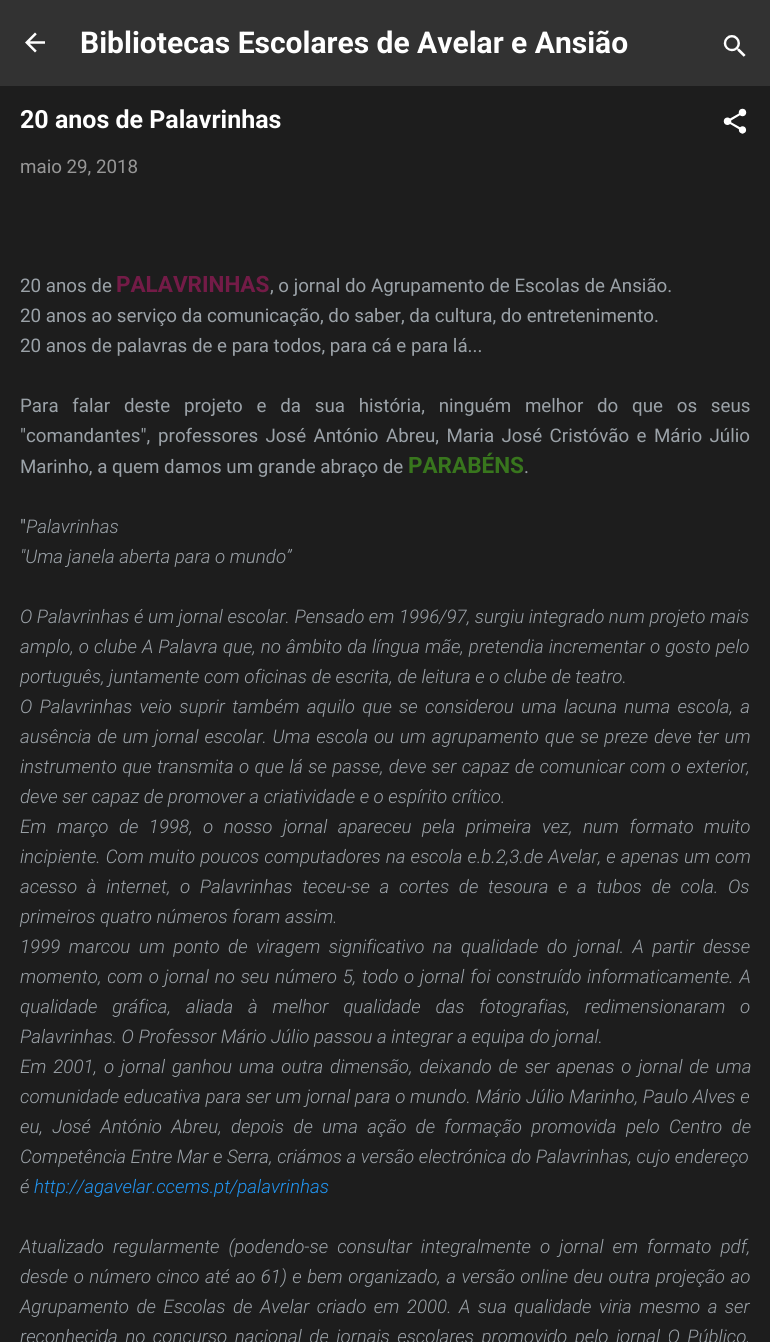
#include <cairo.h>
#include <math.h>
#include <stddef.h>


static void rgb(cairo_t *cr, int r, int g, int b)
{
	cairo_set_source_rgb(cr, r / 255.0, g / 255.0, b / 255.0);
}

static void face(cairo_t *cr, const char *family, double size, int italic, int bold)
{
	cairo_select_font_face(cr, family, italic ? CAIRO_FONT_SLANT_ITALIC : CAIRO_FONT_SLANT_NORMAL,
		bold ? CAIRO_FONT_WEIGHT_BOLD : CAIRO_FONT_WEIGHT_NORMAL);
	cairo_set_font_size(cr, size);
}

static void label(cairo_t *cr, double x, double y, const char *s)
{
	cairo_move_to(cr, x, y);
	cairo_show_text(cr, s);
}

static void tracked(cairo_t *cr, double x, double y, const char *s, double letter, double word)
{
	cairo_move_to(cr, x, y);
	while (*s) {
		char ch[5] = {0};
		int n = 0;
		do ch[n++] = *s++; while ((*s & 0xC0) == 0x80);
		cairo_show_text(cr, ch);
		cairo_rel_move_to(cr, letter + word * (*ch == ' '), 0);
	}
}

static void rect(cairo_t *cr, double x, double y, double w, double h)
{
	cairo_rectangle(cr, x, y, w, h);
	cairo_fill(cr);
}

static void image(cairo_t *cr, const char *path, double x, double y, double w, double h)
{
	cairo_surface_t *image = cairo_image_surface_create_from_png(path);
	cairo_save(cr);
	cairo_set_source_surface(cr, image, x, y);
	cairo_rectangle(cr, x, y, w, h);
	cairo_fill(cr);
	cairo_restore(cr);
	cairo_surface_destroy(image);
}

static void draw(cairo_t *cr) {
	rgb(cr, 50, 50, 50);
	cairo_paint(cr);
	image(cr, "image0.png", 25, 32, 20, 21);
	face(cr, "Roboto", 30, 0, 1);
	rgb(cr, 255, 255, 255);
	label(cr, 80, 53, "Bibliotecas Escolares de Avelar e Ansião");
	image(cr, "image1.png", 723, 35, 23, 22);
	rgb(cr, 29, 29, 29);
	rect(cr, 0, 86, 770, 1256);
	face(cr, "Roboto", 25, 0, 1);
	rgb(cr, 255, 255, 255);
	label(cr, 20, 128, "20 anos de Palavrinhas");
	image(cr, "image2.png", 723, 108, 24, 26);
	face(cr, "Roboto", 18.75, 0, 0);
	rgb(cr, 151, 151, 151);
	label(cr, 20, 173, "maio 29, 2018");
	rgb(cr, 155, 162, 168);
	label(cr, 20, 292, "20 anos de");
	face(cr, "Roboto", 22.5, 0, 1);
	rgb(cr, 116, 27, 71);
	label(cr, 116, 292, "PALAVRINHAS");
	face(cr, "Roboto", 18.75, 0, 0);
	rgb(cr, 155, 162, 168);
	label(cr, 270, 292, ", o jornal do Agrupamento de Escolas de Ansião.");
	label(cr, 20, 322, "20 anos ao serviço da comunicação, do saber, da cultura, do entretenimento.");
	label(cr, 20, 352, "20 anos de palavras de e para todos, para cá e para lá...");
	tracked(cr, 20, 412, "Para falar deste projeto e da sua história, ninguém melhor do que os seus", 0, 9.1);
	label(cr, 20, 442, "\"comandantes\",");
	tracked(cr, 158, 442, "professores José António Abreu, Maria José Cristóvão e Mário Júlio", 0, 2.75);
	label(cr, 20, 473, "Marinho, a quem damos um grande abraço de");
	face(cr, "Roboto", 22.5, 0, 1);
	rgb(cr, 56, 118, 29);
	label(cr, 408, 473, "PARABÉNS");
	face(cr, "Roboto", 18.75, 0, 0);
	rgb(cr, 155, 162, 168);
	label(cr, 524, 473, ".");
	label(cr, 20, 533, "\"");
	face(cr, "Roboto Light", 18.75, 1, 0);
	label(cr, 26, 533, "Palavrinhas");
	label(cr, 20, 563, "\"Uma janela aberta para o mundo”");
	label(cr, 20, 623, "O Palavrinhas é um jornal escolar. Pensado em 1996/97, surgiu integrado num projeto mais");
	tracked(cr, 20, 653, "amplo, o clube A Palavra que, no âmbito da língua mãe, pretendia incrementar o gosto pelo", 0, 0.5);
	label(cr, 20, 683, "português, juntamente com oficinas de escrita, de leitura e o clube de teatro.");
	tracked(cr, 20, 713, "O Palavrinhas veio suprir também aquilo que se considerou uma lacuna numa escola, a", 0, 2.75);
	tracked(cr, 20, 743, "ausência de um jornal escolar. Uma escola ou um agrupamento que se preze deve ter um", 0, 1.2);
	tracked(cr, 20, 773, "instrumento que transmita o que lá se passe, deve ser capaz de comunicar com o exterior,", 0, 0.75);
	label(cr, 20, 803, "deve ser capaz de promover a criatividade e o espírito crítico.");
	tracked(cr, 20, 833, "Em março de 1998, o nosso jornal apareceu pela primeira vez, num formato muito", 0, 5.9);
	tracked(cr, 20, 863, "incipiente. Com muito poucos computadores na escola e.b.2,3.de Avelar, e apenas um com", 0, 0.5);
	tracked(cr, 20, 893, "acesso à internet, o Palavrinhas teceu-se a cortes de tesoura e a tubos de cola. Os", 0, 5.1);
	label(cr, 20, 923, "primeiros quatro números foram assim.");
	tracked(cr, 20, 953, "1999 marcou um ponto de viragem significativo na qualidade do jornal. A partir desse", 0, 3.9);
	tracked(cr, 20, 983, "momento, com o jornal no seu número 5, todo o jornal foi construído informaticamente. A", 0, 1.25);
	tracked(cr, 20, 1013, "qualidade gráfica, aliada à melhor qualidade das fotografias, redimensionaram o", 0, 10.25);
	label(cr, 20, 1043, "Palavrinhas. O Professor Mário Júlio passou a integrar a equipa do jornal.");
	tracked(cr, 20, 1073, "Em 2001, o jornal ganhou uma outra dimensão, deixando de ser apenas o jornal de uma", 0, 2.25);
	tracked(cr, 20, 1103, "comunidade educativa para ser um jornal para o mundo. Mário Júlio Marinho, Paulo Alves e", 0, 0.1);
	tracked(cr, 20, 1133, "eu, José António Abreu, depois de uma ação de formação promovida pelo Centro de", 0, 4.75);
	label(cr, 20, 1163, "Competência Entre Mar e Serra, criámos a versão electrónica do Palavrinhas, cujo endereço");
	label(cr, 20, 1193, "é");
	rgb(cr, 33, 150, 243);
	label(cr, 34, 1193, "http://agavelar.ccems.pt/palavrinhas");
	rgb(cr, 155, 162, 168);
	tracked(cr, 20, 1253, "Atualizado regularmente (podendo-se consultar integralmente o jornal em formato pdf,", 0, 4.5);
	tracked(cr, 20, 1283, "desde o número cinco até ao 61) e bem organizado, a versão online deu outra projeção ao", 0, 0.9);
	tracked(cr, 20, 1313, "Agrupamento de Escolas de Avelar criado em 2000. A sua qualidade viria mesmo a ser", 0, 2.9);
	tracked(cr, 20, 1343, "reconhecida no concurso nacional de jornais escolares promovido pelo jornal O Público,", 0, 2.9);
}

int main(void) {
	cairo_surface_t *surface = cairo_image_surface_create(CAIRO_FORMAT_RGB24, 770, 1342);
	cairo_t *cr = cairo_create(surface);
	cairo_font_options_t *options = cairo_font_options_create();
	cairo_font_options_set_hint_metrics(options, CAIRO_HINT_METRICS_OFF);
	cairo_font_options_set_hint_style(options, CAIRO_HINT_STYLE_NONE);
	cairo_set_font_options(cr, options);
	cairo_set_miter_limit(cr, 4);
	draw(cr);
	cairo_surface_write_to_png(surface, "render.png");
	cairo_font_options_destroy(options);
	cairo_destroy(cr);
	cairo_surface_destroy(surface);
	return 0;
}
